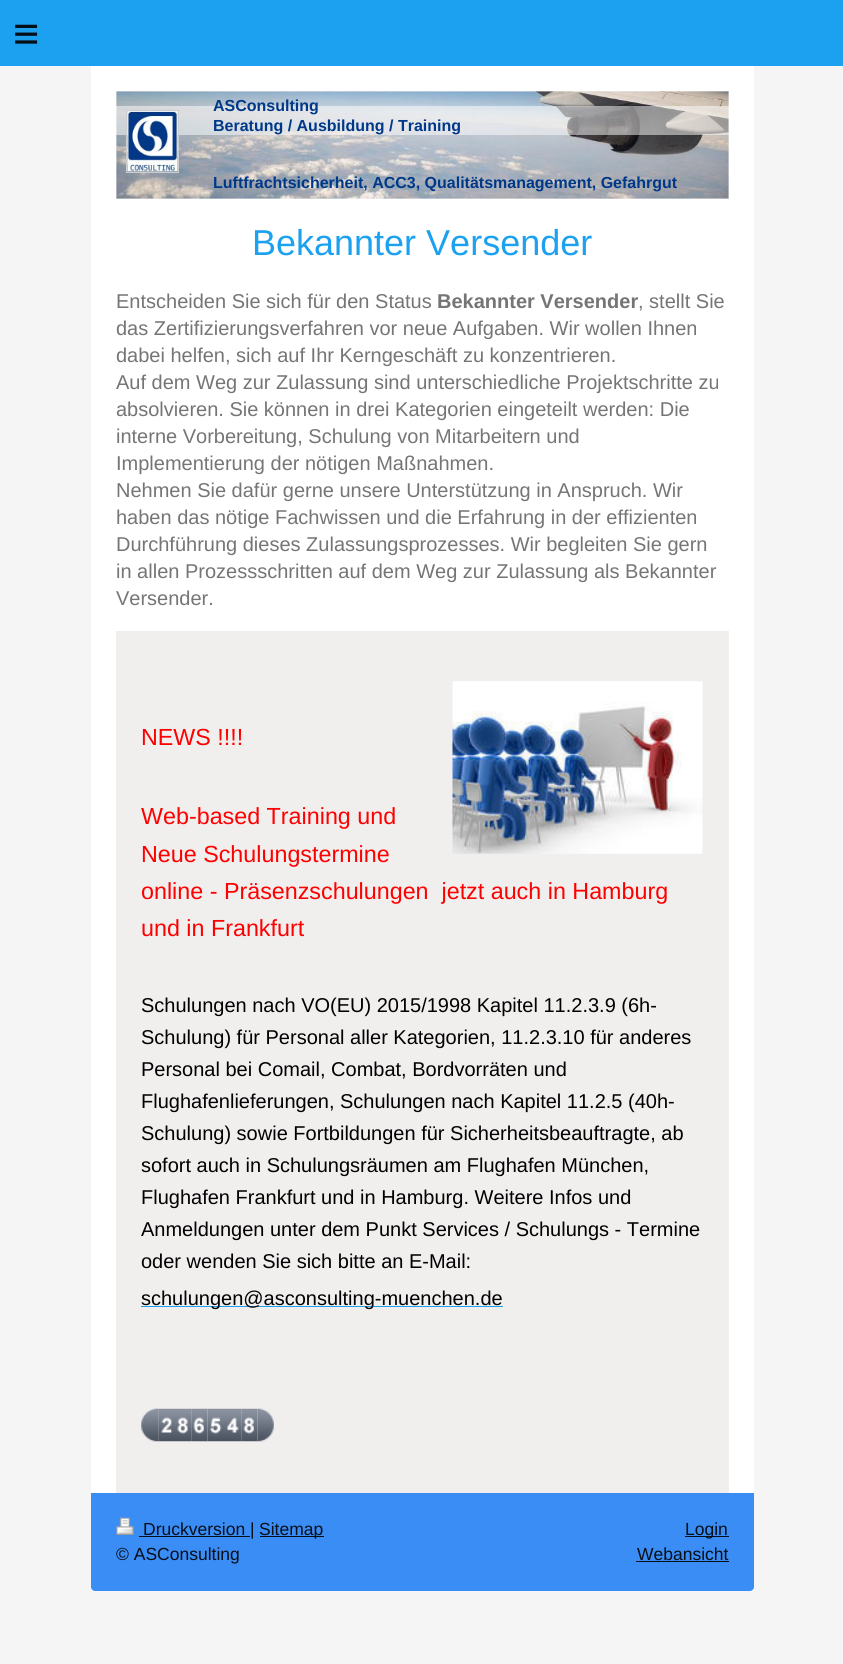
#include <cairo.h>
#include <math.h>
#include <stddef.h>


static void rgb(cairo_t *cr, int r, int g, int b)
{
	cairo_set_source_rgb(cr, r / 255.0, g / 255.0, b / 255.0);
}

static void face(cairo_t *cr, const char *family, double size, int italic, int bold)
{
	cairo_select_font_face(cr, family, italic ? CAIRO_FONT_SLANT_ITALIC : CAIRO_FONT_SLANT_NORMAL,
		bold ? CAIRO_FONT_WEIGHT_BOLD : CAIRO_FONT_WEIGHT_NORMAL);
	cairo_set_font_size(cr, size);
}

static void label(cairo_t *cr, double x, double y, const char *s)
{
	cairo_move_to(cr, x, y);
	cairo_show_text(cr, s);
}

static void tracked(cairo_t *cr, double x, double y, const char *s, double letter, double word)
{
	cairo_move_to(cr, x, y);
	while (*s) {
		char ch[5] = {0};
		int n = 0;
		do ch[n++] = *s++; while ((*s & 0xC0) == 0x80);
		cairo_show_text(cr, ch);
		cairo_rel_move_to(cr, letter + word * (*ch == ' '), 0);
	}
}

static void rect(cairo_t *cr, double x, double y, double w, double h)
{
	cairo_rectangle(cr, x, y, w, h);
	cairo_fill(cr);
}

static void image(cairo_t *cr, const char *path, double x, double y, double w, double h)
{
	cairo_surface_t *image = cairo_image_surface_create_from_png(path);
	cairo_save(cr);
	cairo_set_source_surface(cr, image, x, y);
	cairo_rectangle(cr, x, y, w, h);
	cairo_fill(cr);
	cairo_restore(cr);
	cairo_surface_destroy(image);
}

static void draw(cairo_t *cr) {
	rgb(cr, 245, 245, 245);
	cairo_paint(cr);
	rgb(cr, 255, 255, 255);
	cairo_new_path(cr);
	cairo_move_to(cr, 91, 38);
	cairo_line_to(cr, 754, 38);
	cairo_line_to(cr, 754, 1587);
	cairo_curve_to(cr, 754, 1589, 752, 1591, 750, 1591);
	cairo_line_to(cr, 95, 1591);
	cairo_curve_to(cr, 93, 1591, 91, 1589, 91, 1587);
	cairo_close_path(cr);
	cairo_fill(cr);
	rgb(cr, 28, 161, 240);
	rect(cr, 0, 0, 843, 66);
	face(cr, "Liberation Sans", 45, 0, 0);
	rgb(cr, 6, 14, 24);
	tracked(cr, 13, 49, "≡", 13, 0);
	rgb(cr, 238, 238, 238);
	rect(cr, 116, 91, 613, 108);
	image(cr, "image0.png", 116, 91, 613, 108);
	cairo_set_source_rgba(cr, 1, 1, 1, 0.5);
	rect(cr, 116, 106, 613, 29);
	face(cr, "Liberation Sans", 16, 0, 1);
	rgb(cr, 0, 56, 136);
	label(cr, 213, 111, "ASConsulting");
	label(cr, 213, 131, "Beratung / Ausbildung / Training");
	label(cr, 213, 188, "Luftfrachtsicherheit, ACC3, Qualitätsmanagement, Gefahrgut");
	cairo_rectangle(cr, 126.5, 110.5, 52, 62);
	rgb(cr, 204, 204, 204);
	cairo_set_line_width(cr, 1);
	cairo_stroke(cr);
	image(cr, "image1.png", 127, 111, 51, 61);
	face(cr, "Liberation Sans", 36, 0, 0);
	rgb(cr, 28, 161, 240);
	label(cr, 252, 255, "Bekannter Versender");
	face(cr, "Liberation Sans", 20, 0, 0);
	rgb(cr, 117, 117, 117);
	label(cr, 116, 308, "Entscheiden Sie sich für den Status");
	face(cr, "Liberation Sans", 20, 0, 1);
	label(cr, 437, 308, "Bekannter Versender");
	face(cr, "Liberation Sans", 20, 0, 0);
	label(cr, 638, 308, ", stellt Sie");
	label(cr, 116, 335, "das Zertifizierungsverfahren vor neue Aufgaben. Wir wollen Ihnen");
	label(cr, 116, 362, "dabei helfen, sich auf Ihr Kerngeschäft zu konzentrieren.");
	label(cr, 116, 389, "Auf dem Weg zur Zulassung sind unterschiedliche Projektschritte zu");
	label(cr, 116, 416, "absolvieren. Sie können in drei Kategorien eingeteilt werden: Die");
	label(cr, 116, 443, "interne Vorbereitung, Schulung von Mitarbeitern und");
	label(cr, 116, 470, "Implementierung der nötigen Maßnahmen.");
	label(cr, 116, 497, "Nehmen Sie dafür gerne unsere Unterstützung in Anspruch. Wir");
	label(cr, 116, 524, "haben das nötige Fachwissen und die Erfahrung in der effizienten");
	label(cr, 116, 551, "Durchführung dieses Zulassungsprozesses. Wir begleiten Sie gern");
	label(cr, 116, 578, "in allen Prozessschritten auf dem Weg zur Zulassung als Bekannter");
	label(cr, 116, 605, "Versender.");
	rgb(cr, 241, 238, 238);
	rect(cr, 116, 631, 613, 862);
	image(cr, "image2.png", 452, 681, 251, 173);
	face(cr, "Liberation Sans", 23.3, 0, 0);
	rgb(cr, 255, 0, 0);
	label(cr, 141, 745, "NEWS !!!!");
	label(cr, 141, 824, "Web-based Training und");
	label(cr, 141, 862, "Neue Schulungstermine");
	label(cr, 141, 899, "online - Präsenzschulungen  jetzt auch in Hamburg");
	label(cr, 141, 936, "und in Frankfurt");
	face(cr, "Liberation Sans", 20, 0, 0);
	rgb(cr, 0, 0, 0);
	label(cr, 141, 1012, "Schulungen nach VO(EU) 2015/1998 Kapitel 11.2.3.9 (6h-");
	label(cr, 141, 1044, "Schulung) für Personal aller Kategorien, 11.2.3.10 für anderes");
	label(cr, 141, 1076, "Personal bei Comail, Combat, Bordvorräten und");
	label(cr, 141, 1108, "Flughafenlieferungen, Schulungen nach Kapitel 11.2.5 (40h-");
	label(cr, 141, 1140, "Schulung) sowie Fortbildungen für Sicherheitsbeauftragte, ab");
	label(cr, 141, 1172, "sofort auch in Schulungsräumen am Flughafen München,");
	label(cr, 141, 1204, "Flughafen Frankfurt und in Hamburg. Weitere Infos und");
	label(cr, 141, 1236, "Anmeldungen unter dem Punkt Services / Schulungs - Termine");
	label(cr, 141, 1268, "oder wenden Sie sich bitte an E-Mail:");
	rgb(cr, 28, 161, 240);
	rect(cr, 141, 1306, 362, 1);
	rgb(cr, 0, 0, 0);
	label(cr, 141, 1305, "schulungen@asconsulting-muenchen.de");
	image(cr, "image3.png", 141, 1408, 18, 34);
	image(cr, "image4.png", 158, 1408, 17, 34);
	image(cr, "image5.png", 175, 1408, 17, 34);
	image(cr, "image6.png", 191, 1408, 17, 34);
	image(cr, "image7.png", 207, 1408, 18, 34);
	image(cr, "image8.png", 225, 1408, 17, 34);
	image(cr, "image9.png", 241, 1408, 17, 34);
	image(cr, "image10.png", 257, 1408, 17, 34);
	rgb(cr, 58, 141, 244);
	cairo_new_path(cr);
	cairo_move_to(cr, 91, 1493);
	cairo_line_to(cr, 754, 1493);
	cairo_line_to(cr, 754, 1587);
	cairo_curve_to(cr, 754, 1589, 752, 1591, 750, 1591);
	cairo_line_to(cr, 95, 1591);
	cairo_curve_to(cr, 93, 1591, 91, 1589, 91, 1587);
	cairo_close_path(cr);
	cairo_fill(cr);
	image(cr, "image11.png", 116, 1517, 18, 18);
	rgb(cr, 6, 14, 24);
	rect(cr, 139, 1536, 111, 1);
	face(cr, "Liberation Sans", 17.5, 0, 0);
	label(cr, 143, 1535, "Druckversion |");
	rect(cr, 260, 1536, 64, 1);
	label(cr, 259, 1535, "Sitemap");
	label(cr, 116, 1560, "© ASConsulting");
	rect(cr, 685, 1536, 44, 1);
	label(cr, 685, 1535, "Login");
	label(cr, 637, 1560, "Webansicht");
	rect(cr, 636, 1561, 93, 1);
}

int main(void) {
	cairo_surface_t *surface = cairo_image_surface_create(CAIRO_FORMAT_RGB24, 843, 1664);
	cairo_t *cr = cairo_create(surface);
	cairo_font_options_t *options = cairo_font_options_create();
	cairo_font_options_set_hint_metrics(options, CAIRO_HINT_METRICS_OFF);
	cairo_font_options_set_hint_style(options, CAIRO_HINT_STYLE_NONE);
	cairo_set_font_options(cr, options);
	cairo_set_miter_limit(cr, 4);
	draw(cr);
	cairo_surface_write_to_png(surface, "render.png");
	cairo_font_options_destroy(options);
	cairo_destroy(cr);
	cairo_surface_destroy(surface);
	return 0;
}
